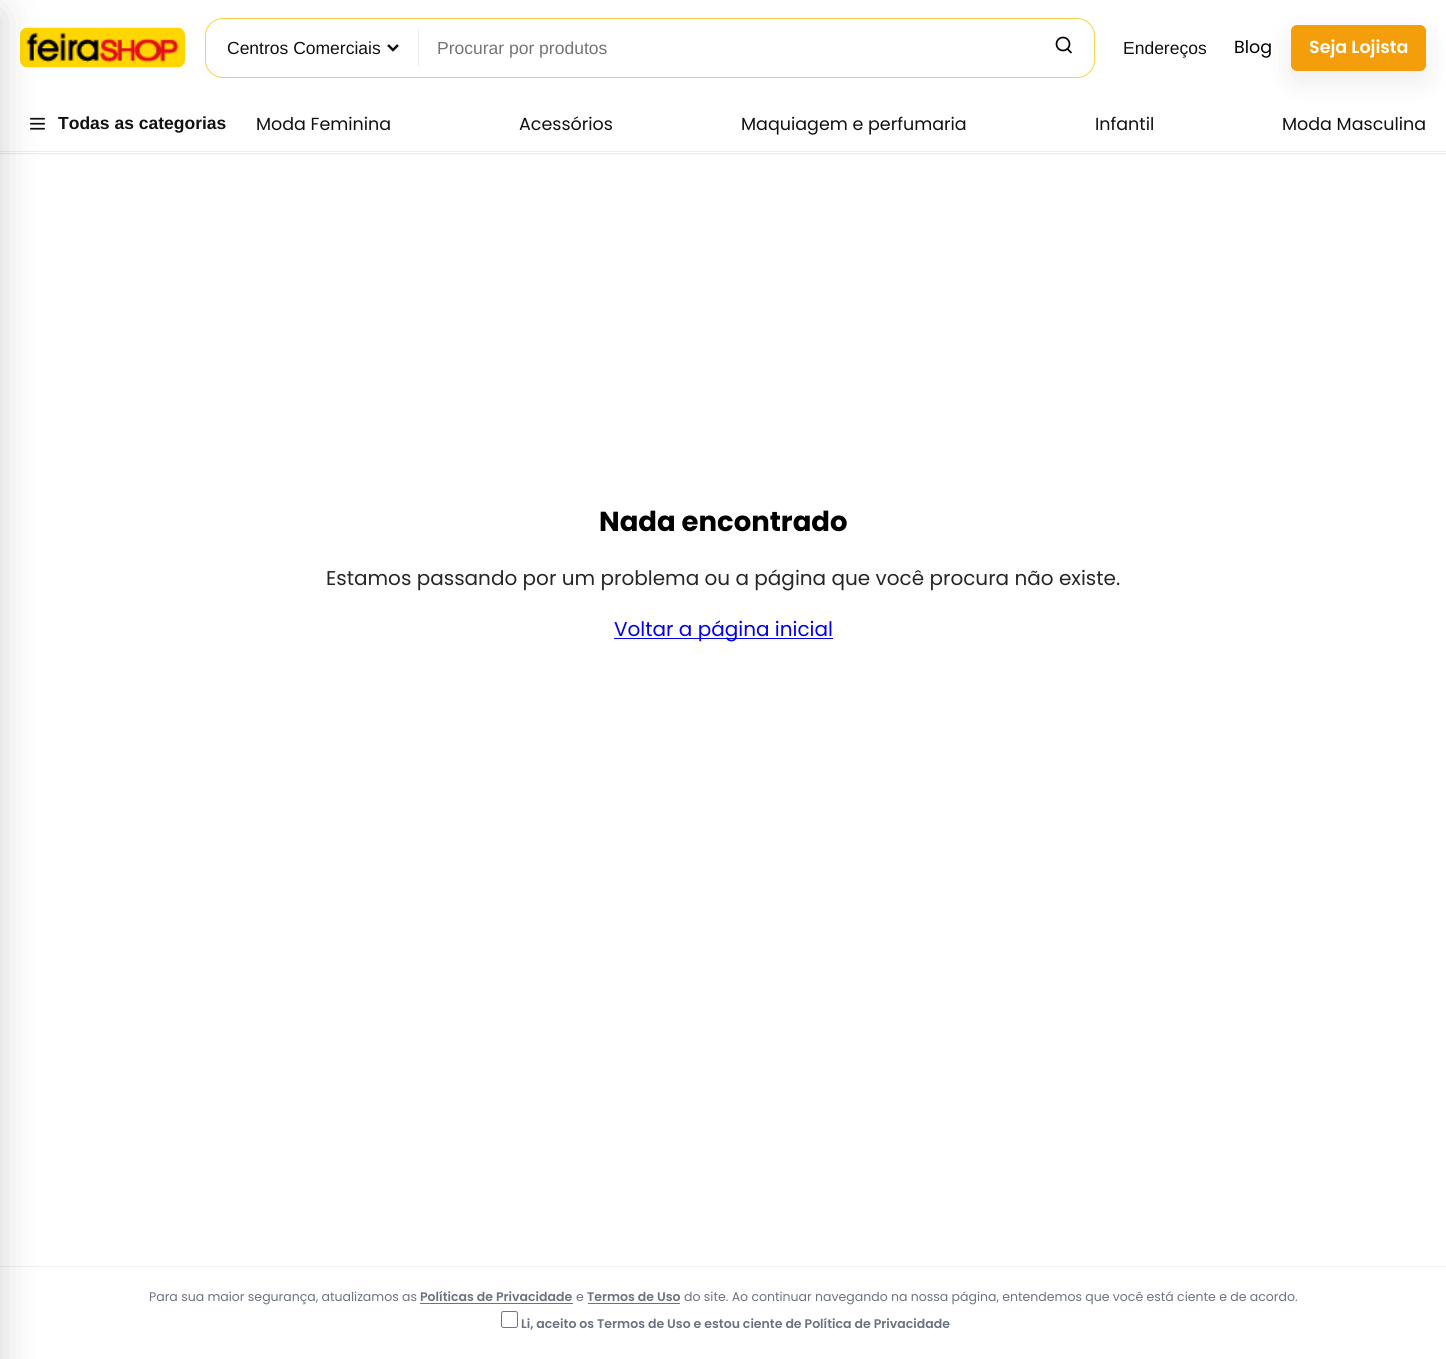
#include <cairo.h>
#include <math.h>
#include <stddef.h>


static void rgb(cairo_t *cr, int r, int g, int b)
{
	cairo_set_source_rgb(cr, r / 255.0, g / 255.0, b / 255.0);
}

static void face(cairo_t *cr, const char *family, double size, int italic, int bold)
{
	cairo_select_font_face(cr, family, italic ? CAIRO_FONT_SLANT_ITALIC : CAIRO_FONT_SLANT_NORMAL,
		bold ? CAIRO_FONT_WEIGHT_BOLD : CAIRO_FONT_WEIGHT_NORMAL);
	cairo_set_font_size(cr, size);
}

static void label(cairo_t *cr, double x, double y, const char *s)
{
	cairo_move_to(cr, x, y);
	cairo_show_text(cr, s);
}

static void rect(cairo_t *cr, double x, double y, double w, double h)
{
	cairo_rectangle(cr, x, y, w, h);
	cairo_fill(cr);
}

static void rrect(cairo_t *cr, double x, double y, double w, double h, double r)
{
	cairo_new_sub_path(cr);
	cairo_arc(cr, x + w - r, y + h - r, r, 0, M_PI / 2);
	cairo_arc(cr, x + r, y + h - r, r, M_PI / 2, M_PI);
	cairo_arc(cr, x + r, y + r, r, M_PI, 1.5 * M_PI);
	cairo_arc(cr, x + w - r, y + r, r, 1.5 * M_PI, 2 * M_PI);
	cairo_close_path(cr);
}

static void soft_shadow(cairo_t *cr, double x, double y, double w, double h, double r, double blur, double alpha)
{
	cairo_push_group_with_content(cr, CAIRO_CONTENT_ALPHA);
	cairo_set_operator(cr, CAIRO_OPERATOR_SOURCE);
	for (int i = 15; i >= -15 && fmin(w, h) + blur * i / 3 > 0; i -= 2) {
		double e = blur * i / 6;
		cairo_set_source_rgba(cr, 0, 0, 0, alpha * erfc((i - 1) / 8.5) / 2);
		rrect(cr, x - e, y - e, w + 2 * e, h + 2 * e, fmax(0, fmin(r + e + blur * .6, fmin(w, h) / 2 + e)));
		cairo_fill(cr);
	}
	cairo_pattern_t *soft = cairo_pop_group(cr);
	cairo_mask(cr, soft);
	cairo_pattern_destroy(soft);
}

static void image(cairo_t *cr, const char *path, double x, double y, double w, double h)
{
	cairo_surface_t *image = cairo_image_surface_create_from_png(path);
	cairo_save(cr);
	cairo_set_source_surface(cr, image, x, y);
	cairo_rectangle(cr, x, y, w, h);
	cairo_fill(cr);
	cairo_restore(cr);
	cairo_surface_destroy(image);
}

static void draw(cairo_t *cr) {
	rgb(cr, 255, 255, 255);
	cairo_paint(cr);
	rgb(cr, 250, 250, 250);
	rect(cr, 0, 154, 1446, 1);
	rgb(cr, 236, 236, 236);
	rect(cr, 0, 153, 1446, 1);
	image(cr, "image0.png", 20, 27, 165, 41);
	rect(cr, 0, 151, 1446, 1);
	image(cr, "image1.png", 30, 117, 15, 13);
	rgb(cr, 240, 240, 240);
	rect(cr, 0, 1266, 1446, 1);
	rgb(cr, 0, 0, 0);
	soft_shadow(cr, -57, 13, 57, 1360, 0, 19, 0.18);
	rrect(cr, 205.5, 18.5, 889, 59, 17.5);
	rgb(cr, 246, 210, 75);
	cairo_set_line_width(cr, 1);
	cairo_stroke(cr);
	cairo_new_path(cr);
	cairo_move_to(cr, 388, 45);
	cairo_line_to(cr, 393, 50);
	cairo_line_to(cr, 398, 45);
	rgb(cr, 17, 17, 17);
	cairo_set_line_width(cr, 2.5);
	cairo_stroke(cr);
	face(cr, "Liberation Sans", 17.5, 0, 0);
	label(cr, 227, 54, "Centros Comerciais");
	rgb(cr, 236, 236, 236);
	rect(cr, 418, 29, 1, 37);
	rgb(cr, 117, 117, 117);
	label(cr, 437, 54, "Procurar por produtos");
	cairo_new_path(cr);
	cairo_move_to(cr, 1071, 52.5);
	cairo_line_to(cr, 1067.5, 49);
	rgb(cr, 0, 0, 0);
	cairo_set_line_width(cr, 1.7);
	cairo_set_line_cap(cr, CAIRO_LINE_CAP_ROUND);
	cairo_set_line_join(cr, CAIRO_LINE_JOIN_ROUND);
	cairo_stroke(cr);
	cairo_arc(cr, 1063, 44, 6.5, 0, 2 * M_PI);
	cairo_set_line_cap(cr, CAIRO_LINE_CAP_BUTT);
	cairo_set_line_join(cr, CAIRO_LINE_JOIN_MITER);
	cairo_stroke(cr);
	rgb(cr, 17, 17, 17);
	label(cr, 1123, 54, "Endereços");
	face(cr, "Poppins", 17.5, 0, 0);
	rgb(cr, 0, 0, 0);
	label(cr, 1234, 53, "Blog");
	rgb(cr, 0, 0, 0);
	soft_shadow(cr, 1291, 35, 135, 46, 6, 15, 0.08);
	rgb(cr, 245, 158, 11);
	rrect(cr, 1291, 25, 135, 46, 6);
	cairo_fill(cr);
	face(cr, "Poppins SemiBold", 17.5, 0, 0);
	rgb(cr, 255, 255, 255);
	label(cr, 1309, 53, "Seja Lojista");
	face(cr, "Liberation Sans", 17.5, 0, 1);
	rgb(cr, 17, 17, 17);
	label(cr, 58, 129, "Todas as categorias");
	face(cr, "Poppins", 17.5, 0, 0);
	label(cr, 256, 130, "Moda Feminina");
	label(cr, 519, 130, "Acessórios");
	label(cr, 741, 130, "Maquiagem e perfumaria");
	label(cr, 1095, 130, "Infantil");
	label(cr, 1282, 130, "Moda Masculina");
	face(cr, "Poppins", 27.5, 0, 1);
	rgb(cr, 0, 0, 0);
	label(cr, 599, 531, "Nada encontrado");
	face(cr, "Poppins", 20, 0, 0);
	rgb(cr, 38, 38, 38);
	label(cr, 326, 585, "Estamos passando por um problema ou a página que você procura não existe.");
	rgb(cr, 0, 0, 238);
	rect(cr, 614, 638, 219, 1);
	label(cr, 614, 636, "Voltar a página inicial");
	face(cr, "Poppins", 12.5, 0, 0);
	rgb(cr, 107, 114, 128);
	label(cr, 149, 1301, "Para sua maior segurança, atualizamos as");
	face(cr, "Poppins SemiBold", 12.5, 0, 0);
	label(cr, 420, 1301, "Políticas de Privacidade");
	rect(cr, 420, 1303, 153, 1);
	face(cr, "Poppins", 12.5, 0, 0);
	label(cr, 576, 1301, "e");
	face(cr, "Poppins SemiBold", 12.5, 0, 0);
	label(cr, 587, 1301, "Termos de Uso");
	rect(cr, 588, 1303, 92, 1);
	face(cr, "Poppins", 12.5, 0, 0);
	label(cr, 684, 1301, "do site. Ao continuar navegando na nossa página, entendemos que você está ciente e de acordo.");
	rrect(cr, 501.5, 1311.5, 16, 16, 2);
	rgb(cr, 118, 118, 118);
	cairo_set_line_width(cr, 1);
	cairo_stroke(cr);
	face(cr, "Poppins SemiBold", 12.5, 0, 0);
	rgb(cr, 107, 114, 128);
	label(cr, 521, 1328, "Li, aceito os Termos de Uso e estou ciente de Política de Privacidade");
}

int main(void) {
	cairo_surface_t *surface = cairo_image_surface_create(CAIRO_FORMAT_RGB24, 1446, 1359);
	cairo_t *cr = cairo_create(surface);
	cairo_font_options_t *options = cairo_font_options_create();
	cairo_font_options_set_hint_metrics(options, CAIRO_HINT_METRICS_OFF);
	cairo_font_options_set_hint_style(options, CAIRO_HINT_STYLE_NONE);
	cairo_set_font_options(cr, options);
	cairo_set_miter_limit(cr, 4);
	draw(cr);
	cairo_surface_write_to_png(surface, "render.png");
	cairo_font_options_destroy(options);
	cairo_destroy(cr);
	cairo_surface_destroy(surface);
	return 0;
}
